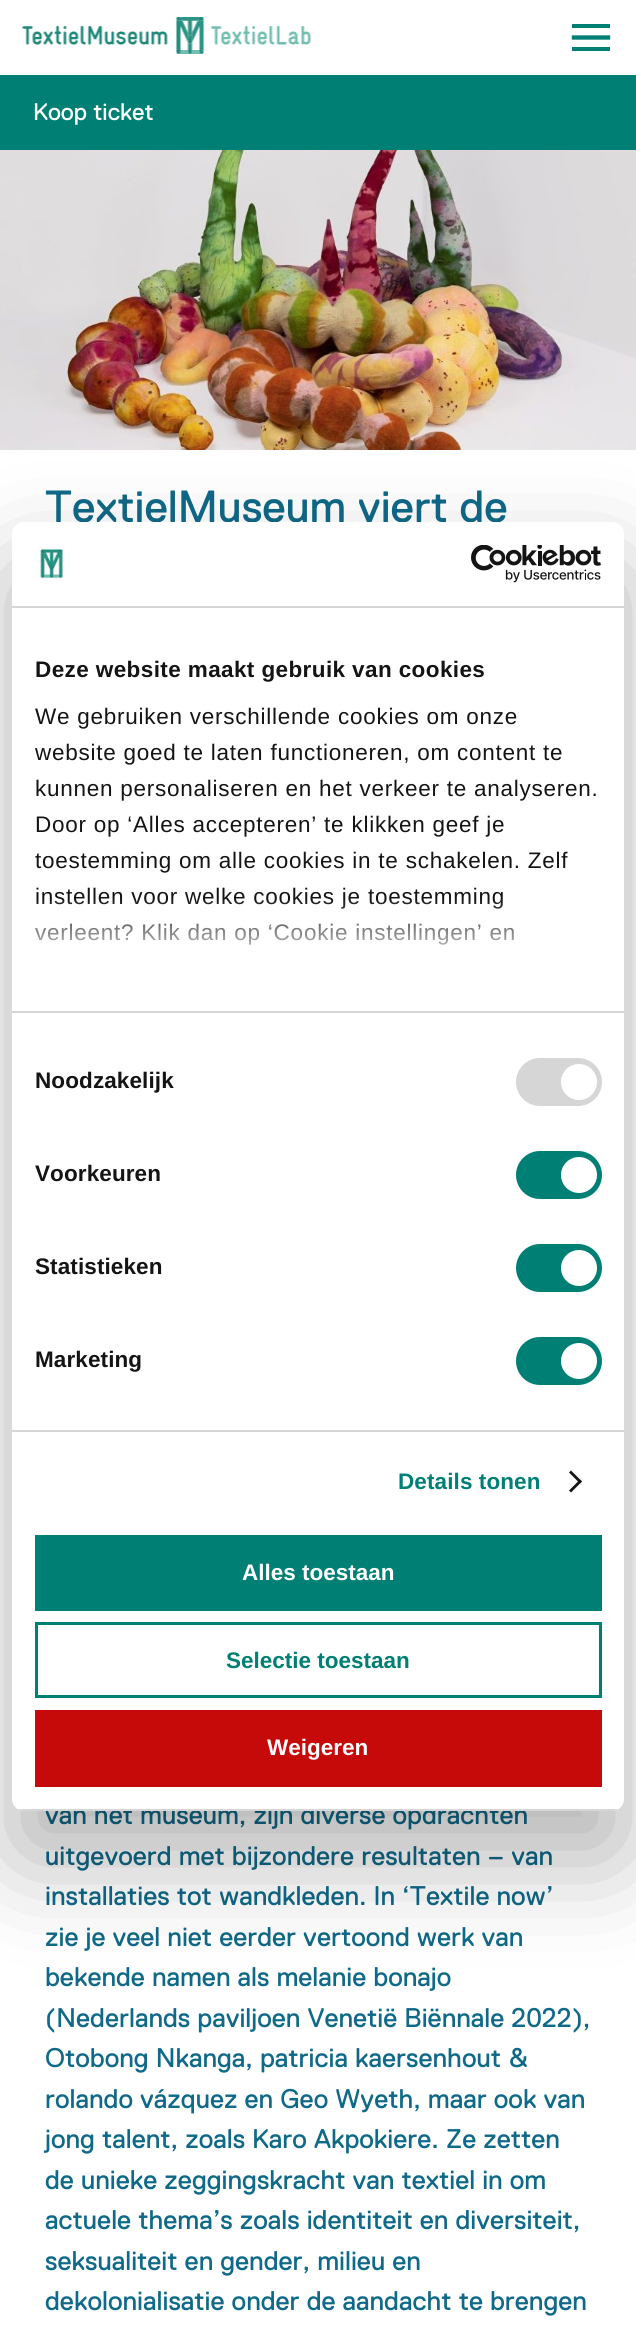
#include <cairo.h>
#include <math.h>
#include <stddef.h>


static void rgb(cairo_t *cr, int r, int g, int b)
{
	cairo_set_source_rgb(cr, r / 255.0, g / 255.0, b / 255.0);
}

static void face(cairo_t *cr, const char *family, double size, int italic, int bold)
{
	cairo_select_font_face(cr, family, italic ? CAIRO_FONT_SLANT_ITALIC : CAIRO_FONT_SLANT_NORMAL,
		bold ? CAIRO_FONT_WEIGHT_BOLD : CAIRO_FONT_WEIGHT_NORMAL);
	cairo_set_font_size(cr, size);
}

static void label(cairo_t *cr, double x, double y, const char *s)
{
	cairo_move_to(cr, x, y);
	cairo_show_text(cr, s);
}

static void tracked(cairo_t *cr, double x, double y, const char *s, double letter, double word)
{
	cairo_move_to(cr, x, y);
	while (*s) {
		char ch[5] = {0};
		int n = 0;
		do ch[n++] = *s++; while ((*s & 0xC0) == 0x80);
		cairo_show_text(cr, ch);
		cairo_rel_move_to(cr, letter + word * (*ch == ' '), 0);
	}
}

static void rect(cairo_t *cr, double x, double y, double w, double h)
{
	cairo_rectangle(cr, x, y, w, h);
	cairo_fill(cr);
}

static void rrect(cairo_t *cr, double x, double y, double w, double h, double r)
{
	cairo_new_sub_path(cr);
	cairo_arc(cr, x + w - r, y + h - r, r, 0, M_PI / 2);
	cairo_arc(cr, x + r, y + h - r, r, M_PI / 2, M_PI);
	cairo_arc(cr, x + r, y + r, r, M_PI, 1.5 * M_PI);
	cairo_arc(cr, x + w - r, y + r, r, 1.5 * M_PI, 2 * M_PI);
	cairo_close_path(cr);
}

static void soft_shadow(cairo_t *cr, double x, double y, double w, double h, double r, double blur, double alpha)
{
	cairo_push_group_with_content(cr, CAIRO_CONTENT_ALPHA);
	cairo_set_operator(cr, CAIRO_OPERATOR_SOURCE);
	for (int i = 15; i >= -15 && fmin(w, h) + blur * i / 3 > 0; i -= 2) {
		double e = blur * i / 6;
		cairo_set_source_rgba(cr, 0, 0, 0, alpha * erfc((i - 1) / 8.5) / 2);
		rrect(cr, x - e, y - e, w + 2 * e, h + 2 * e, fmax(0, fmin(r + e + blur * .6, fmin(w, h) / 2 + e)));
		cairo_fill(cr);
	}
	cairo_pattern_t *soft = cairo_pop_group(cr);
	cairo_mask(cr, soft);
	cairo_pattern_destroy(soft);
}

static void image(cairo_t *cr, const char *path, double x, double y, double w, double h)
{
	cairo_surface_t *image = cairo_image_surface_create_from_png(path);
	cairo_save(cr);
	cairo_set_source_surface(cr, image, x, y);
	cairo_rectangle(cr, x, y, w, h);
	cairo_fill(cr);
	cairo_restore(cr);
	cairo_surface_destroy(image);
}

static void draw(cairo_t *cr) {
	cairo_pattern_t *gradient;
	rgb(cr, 255, 255, 255);
	cairo_paint(cr);
	image(cr, "image0.png", 22, 17, 289, 37);
	cairo_new_path(cr);
	cairo_move_to(cr, 574, 37.5);
	cairo_line_to(cr, 608, 37.5);
	rgb(cr, 0, 128, 116);
	cairo_set_line_width(cr, 4.4);
	cairo_set_line_cap(cr, CAIRO_LINE_CAP_SQUARE);
	cairo_set_line_join(cr, CAIRO_LINE_JOIN_ROUND);
	cairo_stroke(cr);
	rect(cr, 572, 24, 38, 4);
	rect(cr, 572, 47, 38, 4);
	rect(cr, 0, 75, 636, 75);
	face(cr, "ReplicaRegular", 24, 0, 0);
	rgb(cr, 255, 255, 255);
	label(cr, 33, 120, "Koop ticket");
	image(cr, "image1.png", 0, 150, 636, 300);
	face(cr, "ReplicaRegular", 45, 0, 0);
	rgb(cr, 15, 105, 136);
	label(cr, 45, 522, "TextielMuseum viert de");
	face(cr, "ReplicaRegular", 27, 0, 0);
	label(cr, 45, 1824, "van het museum, zijn diverse opdrachten");
	label(cr, 45, 1865, "uitgevoerd met bijzondere resultaten – van");
	label(cr, 45, 1905, "installaties tot wandkleden. In ‘Textile now’");
	label(cr, 45, 1946, "zie je veel niet eerder vertoond werk van");
	label(cr, 45, 1986, "bekende namen als melanie bonajo");
	label(cr, 45, 2027, "(Nederlands paviljoen Venetië Biënnale 2022),");
	label(cr, 45, 2067, "Otobong Nkanga, patricia kaersenhout &");
	label(cr, 45, 2108, "rolando vázquez en Geo Wyeth, maar ook van");
	label(cr, 45, 2148, "jong talent, zoals Karo Akpokiere. Ze zetten");
	label(cr, 45, 2189, "de unieke zeggingskracht van textiel in om");
	label(cr, 45, 2229, "actuele thema’s zoals identiteit en diversiteit,");
	label(cr, 45, 2270, "seksualiteit en gender, milieu en");
	label(cr, 45, 2310, "dekolonialisatie onder de aandacht te brengen");
	rgb(cr, 0, 0, 0);
	soft_shadow(cr, 12, 570, 612, 1289, 12, 51, 0.3);
	rgb(cr, 255, 255, 255);
	rrect(cr, 12, 522, 612, 1289, 12);
	cairo_fill(cr);
	rgb(cr, 214, 214, 214);
	rect(cr, 12, 606, 612, 2);
	image(cr, "image2.png", 40, 549, 23, 30);
	image(cr, "image3.png", 471, 545, 130, 38);
	rect(cr, 12, 1011, 612, 2);
	face(cr, "Liberation Sans", 22.5, 0, 1);
	rgb(cr, 20, 20, 20);
	tracked(cr, 35, 677, "Deze website maakt gebruik van cookies", 0.4, 0);
	face(cr, "Liberation Sans", 22.5, 0, 0);
	tracked(cr, 35, 724, "We gebruiken verschillende cookies om onze", 0.75, 0);
	tracked(cr, 35, 760, "website goed te laten functioneren, om content te", 0.75, 0);
	tracked(cr, 35, 796, "kunnen personaliseren en het verkeer te analyseren.", 0.75, 0);
	tracked(cr, 35, 832, "Door op ‘Alles accepteren’ te klikken geef je", 0.75, 0);
	tracked(cr, 35, 868, "toestemming om alle cookies in te schakelen. Zelf", 0.75, 0);
	tracked(cr, 35, 904, "instellen voor welke cookies je toestemming", 0.75, 0);
	tracked(cr, 35, 940, "verleent? Klik dan op ‘Cookie instellingen’ en", 0.75, 0);
	gradient = cairo_pattern_create_linear(308, 1011, 308, 898);
	cairo_pattern_add_color_stop_rgba(gradient, 0, 1, 1, 1, 1);
	cairo_pattern_add_color_stop_rgba(gradient, 0.5, 1, 1, 1, 0.8);
	cairo_pattern_add_color_stop_rgba(gradient, 1, 1, 1, 1, 0);
	cairo_set_source(cr, gradient);
	cairo_pattern_destroy(gradient);
	rect(cr, 34, 900, 480, 45);
	rgb(cr, 214, 214, 214);
	rect(cr, 12, 1430, 612, 2);
	face(cr, "Liberation Sans", 22.5, 0, 1);
	rgb(cr, 20, 20, 20);
	tracked(cr, 35, 1088, "Noodzakelijk", 0.1, 0);
	rgb(cr, 214, 214, 214);
	rrect(cr, 516, 1058, 86, 48, 24);
	cairo_fill(cr);
	rgb(cr, 255, 255, 255);
	cairo_arc(cr, 579, 1082, 18, 0, 2 * M_PI);
	cairo_fill(cr);
	rgb(cr, 20, 20, 20);
	tracked(cr, 35, 1181, "Voorkeuren", 0.1, 0);
	rgb(cr, 0, 128, 116);
	rrect(cr, 516, 1151, 86, 48, 24);
	cairo_fill(cr);
	rgb(cr, 255, 255, 255);
	cairo_arc(cr, 579, 1175, 18, 0, 2 * M_PI);
	cairo_fill(cr);
	rgb(cr, 20, 20, 20);
	tracked(cr, 35, 1274, "Statistieken", 0.1, 0);
	rgb(cr, 0, 128, 116);
	rrect(cr, 516, 1244, 86, 48, 24);
	cairo_fill(cr);
	rgb(cr, 255, 255, 255);
	cairo_arc(cr, 579, 1268, 18, 0, 2 * M_PI);
	cairo_fill(cr);
	rgb(cr, 20, 20, 20);
	tracked(cr, 35, 1367, "Marketing", 0.1, 0);
	rgb(cr, 0, 128, 116);
	rrect(cr, 516, 1337, 86, 48, 24);
	cairo_fill(cr);
	rgb(cr, 255, 255, 255);
	cairo_arc(cr, 579, 1361, 18, 0, 2 * M_PI);
	cairo_fill(cr);
	rgb(cr, 0, 128, 116);
	tracked(cr, 398, 1489, "Details tonen", 0.1, 0);
	rgb(cr, 20, 20, 20);
	cairo_new_path(cr);
	cairo_move_to(cr, 571, 1470.5);
	cairo_line_to(cr, 582, 1481.5);
	cairo_line_to(cr, 580, 1483.5);
	cairo_line_to(cr, 569, 1472.5);
	cairo_close_path(cr);
	cairo_fill(cr);
	cairo_new_path(cr);
	cairo_move_to(cr, 580, 1479.5);
	cairo_line_to(cr, 582, 1481.5);
	cairo_line_to(cr, 571, 1492.5);
	cairo_line_to(cr, 569, 1490.5);
	cairo_close_path(cr);
	cairo_fill(cr);
	cairo_save(cr);
	rrect(cr, 12, 522, 612, 1289, 12);
	cairo_clip(cr);
	rgb(cr, 214, 214, 214);
	rect(cr, 12, 1809, 612, 2);
	cairo_restore(cr);
	rgb(cr, 0, 128, 116);
	rect(cr, 35, 1535, 567, 76);
	rgb(cr, 255, 255, 255);
	label(cr, 242, 1580, "Alles toestaan");
	cairo_rectangle(cr, 36.5, 1623.5, 564, 73);
	rgb(cr, 0, 128, 116);
	cairo_set_line_width(cr, 3);
	cairo_set_line_cap(cr, CAIRO_LINE_CAP_BUTT);
	cairo_set_line_join(cr, CAIRO_LINE_JOIN_MITER);
	cairo_stroke(cr);
	label(cr, 226, 1668, "Selectie toestaan");
	rgb(cr, 198, 10, 10);
	rect(cr, 35, 1710, 567, 77);
	rgb(cr, 255, 255, 255);
	label(cr, 267, 1755, "Weigeren");
}

int main(void) {
	cairo_surface_t *surface = cairo_image_surface_create(CAIRO_FORMAT_RGB24, 636, 2330);
	cairo_t *cr = cairo_create(surface);
	cairo_font_options_t *options = cairo_font_options_create();
	cairo_font_options_set_hint_metrics(options, CAIRO_HINT_METRICS_OFF);
	cairo_font_options_set_hint_style(options, CAIRO_HINT_STYLE_NONE);
	cairo_set_font_options(cr, options);
	cairo_set_miter_limit(cr, 4);
	draw(cr);
	cairo_surface_write_to_png(surface, "render.png");
	cairo_font_options_destroy(options);
	cairo_destroy(cr);
	cairo_surface_destroy(surface);
	return 0;
}
